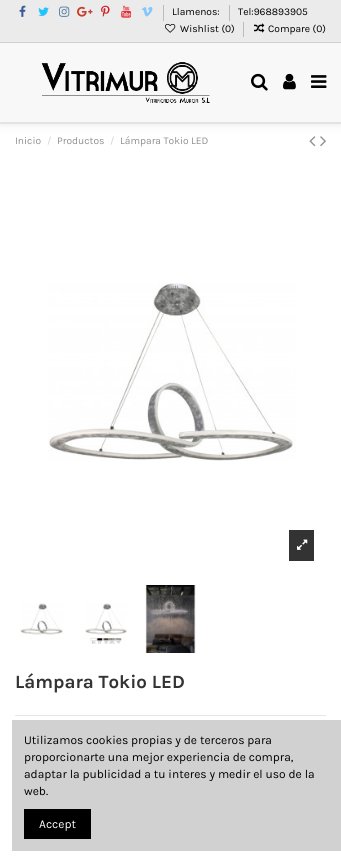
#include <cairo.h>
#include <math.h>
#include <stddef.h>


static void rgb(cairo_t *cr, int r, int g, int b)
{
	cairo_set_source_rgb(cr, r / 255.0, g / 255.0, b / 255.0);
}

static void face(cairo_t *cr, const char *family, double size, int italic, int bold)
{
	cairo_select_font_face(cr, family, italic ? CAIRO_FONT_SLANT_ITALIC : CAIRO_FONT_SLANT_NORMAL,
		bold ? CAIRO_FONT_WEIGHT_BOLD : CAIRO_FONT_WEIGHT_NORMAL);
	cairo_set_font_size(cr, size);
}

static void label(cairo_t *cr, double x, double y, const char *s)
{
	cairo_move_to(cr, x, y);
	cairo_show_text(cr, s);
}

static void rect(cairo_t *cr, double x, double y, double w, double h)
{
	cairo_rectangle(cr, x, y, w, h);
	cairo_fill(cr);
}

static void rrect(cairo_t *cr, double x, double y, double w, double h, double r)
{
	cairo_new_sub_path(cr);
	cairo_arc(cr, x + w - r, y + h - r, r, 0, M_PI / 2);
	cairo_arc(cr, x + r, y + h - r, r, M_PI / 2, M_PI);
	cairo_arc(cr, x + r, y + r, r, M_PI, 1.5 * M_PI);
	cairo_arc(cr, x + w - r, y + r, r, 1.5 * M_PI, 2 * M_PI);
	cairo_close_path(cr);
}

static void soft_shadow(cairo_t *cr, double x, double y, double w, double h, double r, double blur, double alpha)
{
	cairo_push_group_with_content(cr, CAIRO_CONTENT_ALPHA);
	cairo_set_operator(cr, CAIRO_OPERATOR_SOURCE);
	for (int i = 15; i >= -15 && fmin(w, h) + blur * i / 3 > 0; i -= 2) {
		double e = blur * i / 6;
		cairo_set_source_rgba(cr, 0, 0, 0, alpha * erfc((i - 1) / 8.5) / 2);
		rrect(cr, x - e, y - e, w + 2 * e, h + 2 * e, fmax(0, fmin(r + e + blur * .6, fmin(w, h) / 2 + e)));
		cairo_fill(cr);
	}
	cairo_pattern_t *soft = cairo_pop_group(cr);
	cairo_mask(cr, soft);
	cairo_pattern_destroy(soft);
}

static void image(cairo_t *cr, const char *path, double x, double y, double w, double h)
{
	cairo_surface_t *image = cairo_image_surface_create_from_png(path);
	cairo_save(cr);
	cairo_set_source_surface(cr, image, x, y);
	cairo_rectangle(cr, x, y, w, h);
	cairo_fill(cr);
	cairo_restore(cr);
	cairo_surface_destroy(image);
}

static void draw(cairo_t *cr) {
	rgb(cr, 255, 255, 255);
	cairo_paint(cr);
	image(cr, "image13.png", 309, 136, 7, 11);
	image(cr, "image14.png", 320, 136, 6, 11);
	rgb(cr, 61, 57, 57);
	soft_shadow(cr, 0, -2, 341, 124, 0, 5.5, 0.17);
	rgb(cr, 248, 248, 248);
	rect(cr, 0, 43, 341, 79);
	rgb(cr, 227, 227, 227);
	rect(cr, 0, 122, 341, 2);
	rgb(cr, 235, 235, 235);
	rect(cr, 0, 0, 341, 42);
	rgb(cr, 207, 207, 207);
	rect(cr, 0, 42, 341, 1);
	image(cr, "image0.png", 19, 5, 7, 12);
	image(cr, "image1.png", 38, 7, 11, 9);
	image(cr, "image2.png", 59, 6, 11, 11);
	image(cr, "image3.png", 77, 6, 16, 11);
	image(cr, "image4.png", 101, 5, 9, 12);
	image(cr, "image5.png", 121, 5, 11, 13);
	image(cr, "image6.png", 141, 7, 12, 10);
	rgb(cr, 188, 188, 188);
	rect(cr, 163, 5, 1, 16);
	face(cr, "Karla", 10.25, 0, 0);
	rgb(cr, 0, 0, 0);
	label(cr, 172, 15, "Llamenos:");
	rgb(cr, 188, 188, 188);
	rect(cr, 229, 5, 1, 16);
	rgb(cr, 0, 0, 0);
	label(cr, 238, 15, "Tel:968893905");
	image(cr, "image7.png", 165, 23, 11, 10);
	label(cr, 180, 32, "Wishlist (0)");
	rgb(cr, 188, 188, 188);
	rect(cr, 243, 22, 1, 15);
	image(cr, "image8.png", 254, 23, 11, 10);
	rgb(cr, 0, 0, 0);
	label(cr, 268, 32, "Compare (0)");
	image(cr, "image9.png", 41, 62, 169, 41);
	image(cr, "image10.png", 251, 73, 17, 18);
	image(cr, "image11.png", 283, 73, 13, 17);
	image(cr, "image12.png", 311, 75, 16, 13);
	rgb(cr, 143, 143, 143);
	label(cr, 15, 144, "Inicio");
	rgb(cr, 210, 210, 210);
	label(cr, 47, 144, "/");
	rgb(cr, 143, 143, 143);
	label(cr, 57, 144, "Productos");
	rgb(cr, 210, 210, 210);
	label(cr, 110, 144, "/");
	rgb(cr, 143, 143, 143);
	label(cr, 120, 144, "Lámpara Tokio LED");
	image(cr, "image15.png", 48, 283, 248, 178);
	rgb(cr, 51, 51, 51);
	rect(cr, 289, 530, 25, 31);
	image(cr, "image16.png", 297, 539, 11, 11);
	image(cr, "image17.png", 20, 603, 43, 32);
	image(cr, "image18.png", 85, 603, 42, 41);
	image(cr, "image19.png", 145, 585, 51, 68);
	rgb(cr, 231, 231, 231);
	rect(cr, 15, 715, 311, 1);
	face(cr, "Karla", 18.75, 0, 1);
	rgb(cr, 51, 51, 51);
	label(cr, 15, 688, "Lámpara Tokio LED");
	rgb(cr, 209, 209, 209);
	rect(cr, 12, 720, 329, 131);
	face(cr, "Karla", 12, 0, 0);
	rgb(cr, 0, 0, 0);
	label(cr, 24, 744, "Utilizamos cookies propias y de terceros para");
	label(cr, 24, 761, "proporcionarte una mejor experiencia de compra,");
	label(cr, 24, 778, "adaptar la publicidad a tu interes y medir el uso de la");
	label(cr, 24, 795, "web.");
	rect(cr, 24, 809, 67, 30);
	rgb(cr, 255, 255, 255);
	label(cr, 39, 828, "Accept");
}

int main(void) {
	cairo_surface_t *surface = cairo_image_surface_create(CAIRO_FORMAT_RGB24, 341, 863);
	cairo_t *cr = cairo_create(surface);
	cairo_font_options_t *options = cairo_font_options_create();
	cairo_font_options_set_hint_metrics(options, CAIRO_HINT_METRICS_OFF);
	cairo_font_options_set_hint_style(options, CAIRO_HINT_STYLE_NONE);
	cairo_set_font_options(cr, options);
	cairo_set_miter_limit(cr, 4);
	draw(cr);
	cairo_surface_write_to_png(surface, "render.png");
	cairo_font_options_destroy(options);
	cairo_destroy(cr);
	cairo_surface_destroy(surface);
	return 0;
}
